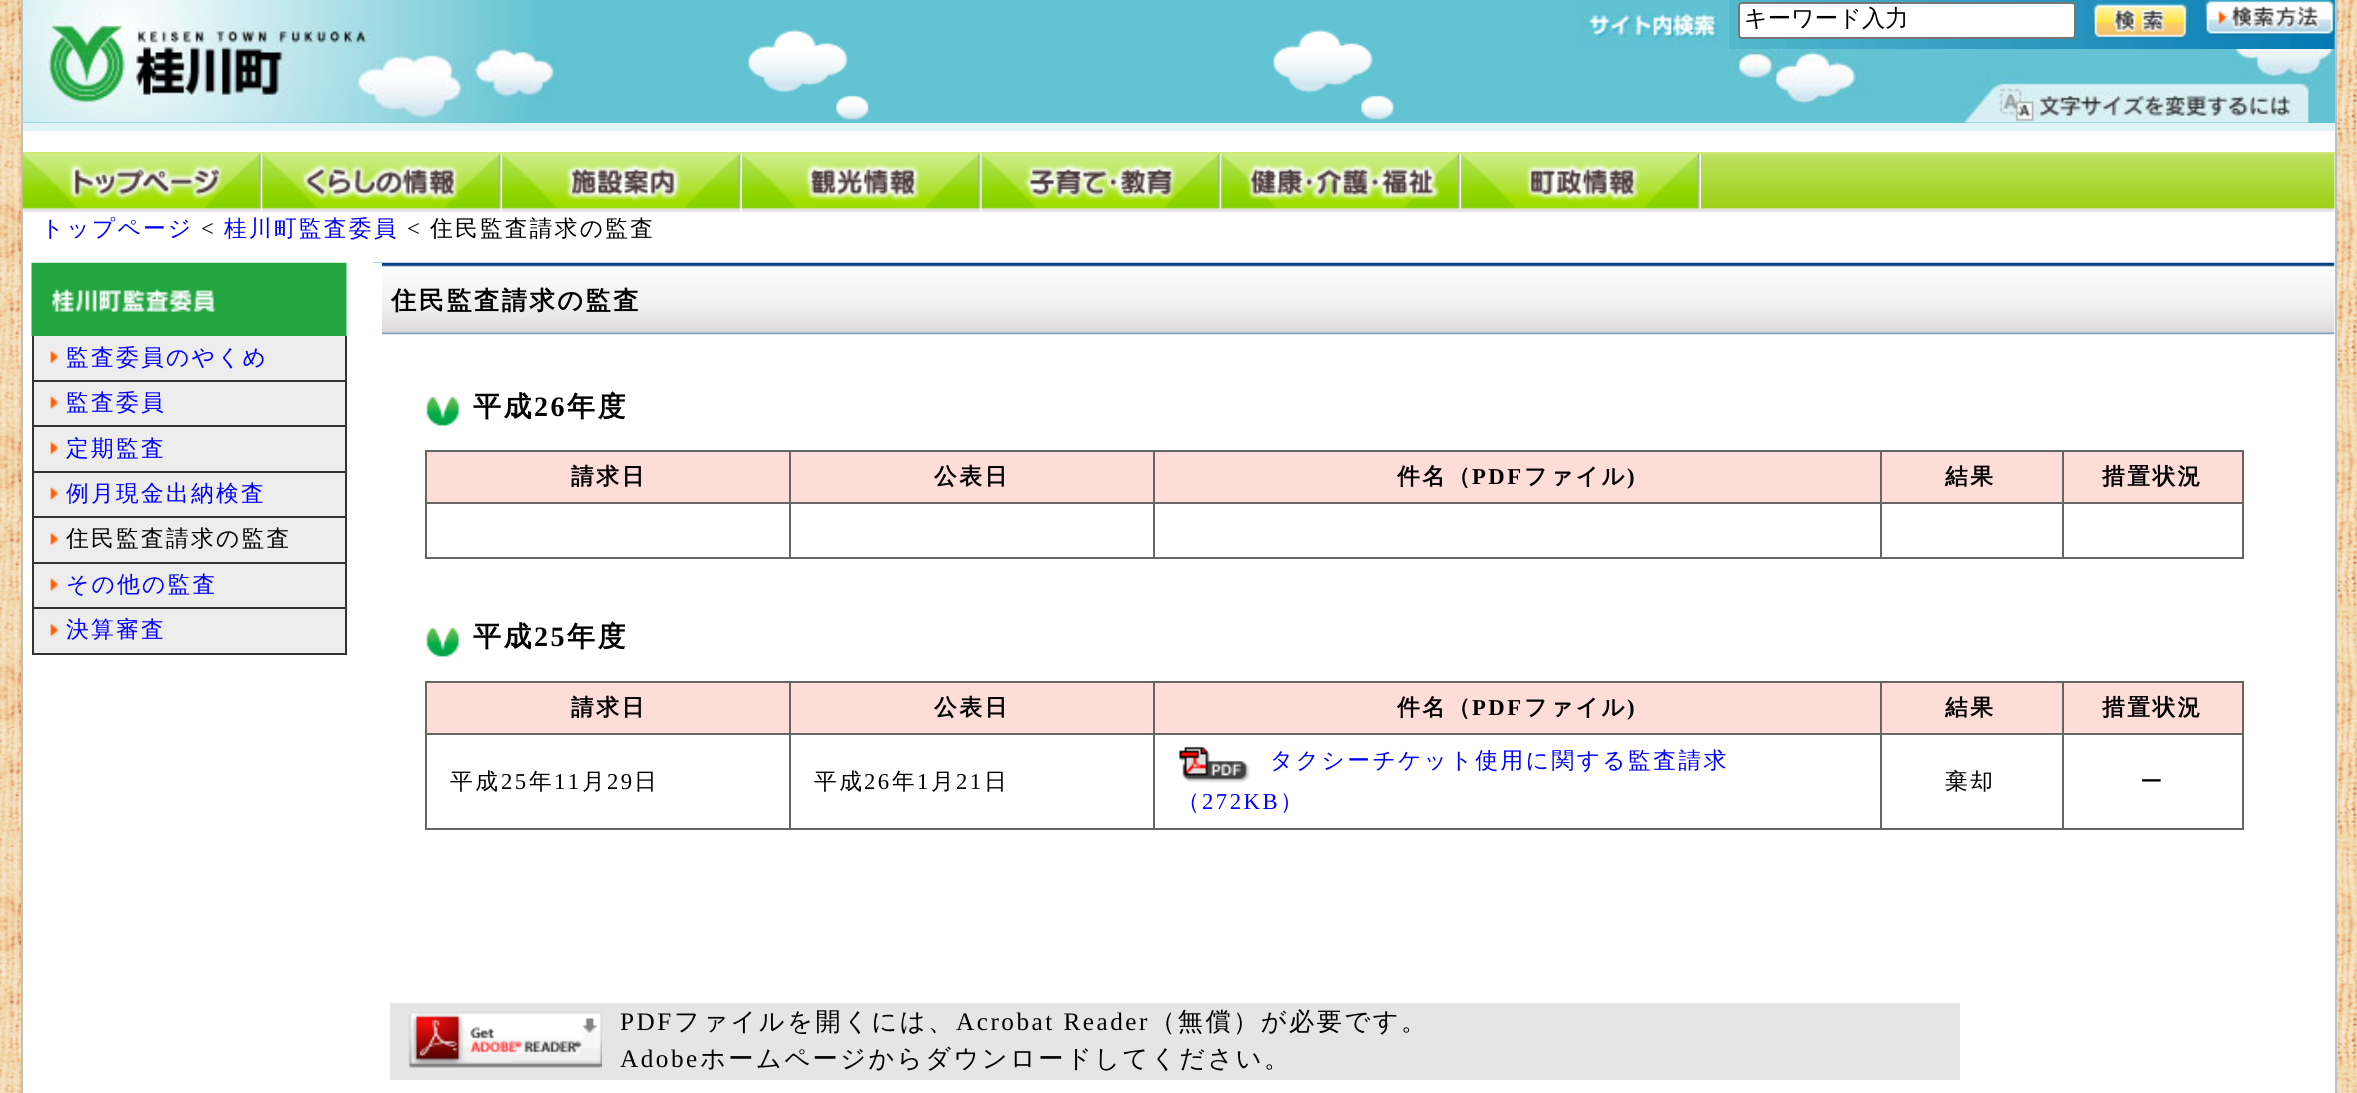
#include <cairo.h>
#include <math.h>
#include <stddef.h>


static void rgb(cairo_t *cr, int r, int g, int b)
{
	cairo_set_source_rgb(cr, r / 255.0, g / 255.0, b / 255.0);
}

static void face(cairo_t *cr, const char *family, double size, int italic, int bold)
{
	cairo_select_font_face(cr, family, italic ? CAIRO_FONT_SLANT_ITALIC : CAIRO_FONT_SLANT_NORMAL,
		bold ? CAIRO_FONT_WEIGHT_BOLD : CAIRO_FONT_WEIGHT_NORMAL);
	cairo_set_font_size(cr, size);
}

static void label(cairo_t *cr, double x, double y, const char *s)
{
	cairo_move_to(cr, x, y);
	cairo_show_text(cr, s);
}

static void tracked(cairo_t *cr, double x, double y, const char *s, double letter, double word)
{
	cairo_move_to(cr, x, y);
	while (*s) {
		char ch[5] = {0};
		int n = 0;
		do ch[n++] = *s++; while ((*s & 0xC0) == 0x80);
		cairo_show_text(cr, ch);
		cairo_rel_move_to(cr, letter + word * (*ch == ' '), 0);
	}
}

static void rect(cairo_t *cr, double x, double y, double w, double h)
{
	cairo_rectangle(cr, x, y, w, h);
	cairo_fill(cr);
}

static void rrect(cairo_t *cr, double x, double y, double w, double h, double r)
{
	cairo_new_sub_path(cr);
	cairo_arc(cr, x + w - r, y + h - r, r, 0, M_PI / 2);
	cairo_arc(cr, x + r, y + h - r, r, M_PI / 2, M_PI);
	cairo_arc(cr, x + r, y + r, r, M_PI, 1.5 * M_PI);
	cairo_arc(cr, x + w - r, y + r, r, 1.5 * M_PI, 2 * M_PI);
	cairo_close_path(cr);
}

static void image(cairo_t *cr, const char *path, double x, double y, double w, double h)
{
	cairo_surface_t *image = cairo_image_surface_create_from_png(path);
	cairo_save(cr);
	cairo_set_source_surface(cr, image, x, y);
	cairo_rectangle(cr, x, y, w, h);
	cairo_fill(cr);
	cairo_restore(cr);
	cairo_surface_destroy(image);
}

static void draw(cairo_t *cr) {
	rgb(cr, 255, 255, 255);
	cairo_paint(cr);
	image(cr, "image0.png", 0, 0, 2357, 1093);
	rgb(cr, 255, 255, 255);
	rect(cr, 23, 131, 2312, 962);
	rgb(cr, 192, 192, 192);
	rect(cr, 2335, 0, 2, 1093);
	rect(cr, 21, 0, 2, 1093);
	rgb(cr, 98, 195, 210);
	rect(cr, 23, 0, 2312, 123);
	image(cr, "image1.png", 22, 0, 1372, 123);
	image(cr, "image2.png", 22, 0, 533, 123);
	image(cr, "image3.png", 1729, 0, 606, 49);
	image(cr, "image4.png", 1580, 0, 149, 49);
	rgb(cr, 255, 255, 255);
	rrect(cr, 1739, 3, 336, 35, 3);
	cairo_fill_preserve(cr);
	rgb(cr, 118, 118, 118);
	cairo_stroke(cr);
	face(cr, "WenQuanYi Zen Hei Medium", 23.25, 0, 0);
	rgb(cr, 0, 0, 0);
	label(cr, 1744, 26, "キーワード入力");
	image(cr, "image5.png", 2093, 3, 95, 36);
	image(cr, "image6.png", 2205, 0, 130, 35);
	image(cr, "image7.png", 1727, 49, 608, 74);
	rgb(cr, 224, 243, 246);
	rect(cr, 23, 123, 2312, 8);
	image(cr, "image8.png", 22, 154, 2313, 58);
	rgb(cr, 207, 233, 118);
	rect(cr, 23, 152, 2312, 2);
	image(cr, "image9.png", 22, 154, 241, 58);
	image(cr, "image10.png", 262, 154, 241, 58);
	image(cr, "image11.png", 502, 154, 240, 58);
	image(cr, "image12.png", 742, 154, 240, 58);
	image(cr, "image13.png", 981, 154, 241, 58);
	image(cr, "image14.png", 1221, 154, 241, 58);
	image(cr, "image15.png", 1461, 154, 240, 58);
	face(cr, "WenQuanYi Zen Hei Medium", 22.7, 0, 0);
	rgb(cr, 0, 0, 255);
	tracked(cr, 41, 236, "トップページ", 2.25, 0);
	face(cr, "Liberation Serif", 22.7, 0, 0);
	rgb(cr, 0, 0, 0);
	tracked(cr, 201, 236, "<", 2.25, 0);
	face(cr, "WenQuanYi Zen Hei Medium", 22.7, 0, 0);
	rgb(cr, 0, 0, 255);
	tracked(cr, 224, 236, "桂川町監査委員", 2.25, 0);
	face(cr, "Liberation Serif", 22.7, 0, 0);
	rgb(cr, 0, 0, 0);
	tracked(cr, 407, 236, "<", 2.25, 0);
	face(cr, "WenQuanYi Zen Hei Medium", 22.7, 0, 0);
	tracked(cr, 430, 236, "住民監査請求の監査", 2.25, 0);
	image(cr, "image19.png", 372, 262, 1963, 73);
	rgb(cr, 255, 255, 255);
	rect(cr, 372, 263, 10, 72);
	image(cr, "image16.png", 31, 262, 316, 74);
	rgb(cr, 237, 237, 237);
	rect(cr, 34, 336, 311, 44);
	image(cr, "image17.png", 50, 350, 10, 14);
	rgb(cr, 51, 51, 51);
	rect(cr, 345, 336, 2, 319);
	rect(cr, 32, 380, 315, 2);
	rect(cr, 32, 336, 2, 46);
	face(cr, "WenQuanYi Zen Hei Medium", 22.75, 0, 0);
	rgb(cr, 0, 0, 255);
	tracked(cr, 66, 365, "監査委員のやくめ", 2.25, 0);
	rgb(cr, 237, 237, 237);
	rect(cr, 34, 382, 311, 43);
	image(cr, "image18.png", 50, 395, 10, 15);
	rgb(cr, 51, 51, 51);
	rect(cr, 32, 425, 315, 2);
	rect(cr, 32, 382, 2, 45);
	rgb(cr, 0, 0, 255);
	tracked(cr, 66, 410, "監査委員", 2.25, 0);
	rgb(cr, 237, 237, 237);
	rect(cr, 34, 427, 311, 44);
	image(cr, "image17.png", 50, 441, 10, 14);
	rgb(cr, 51, 51, 51);
	rect(cr, 32, 471, 315, 2);
	rect(cr, 32, 427, 2, 46);
	rgb(cr, 0, 0, 255);
	tracked(cr, 66, 456, "定期監査", 2.25, 0);
	rgb(cr, 237, 237, 237);
	rect(cr, 34, 473, 311, 43);
	image(cr, "image18.png", 50, 486, 10, 15);
	rgb(cr, 51, 51, 51);
	rect(cr, 32, 516, 315, 2);
	rect(cr, 32, 473, 2, 45);
	rgb(cr, 0, 0, 255);
	tracked(cr, 66, 501, "例月現金出納検査", 2.25, 0);
	rgb(cr, 237, 237, 237);
	rect(cr, 34, 518, 311, 44);
	image(cr, "image17.png", 50, 532, 10, 14);
	rgb(cr, 51, 51, 51);
	rect(cr, 32, 562, 315, 2);
	rect(cr, 32, 518, 2, 46);
	rgb(cr, 0, 0, 0);
	tracked(cr, 66, 546, "住民監査請求の監査", 2.25, 0);
	rgb(cr, 237, 237, 237);
	rect(cr, 34, 564, 311, 43);
	image(cr, "image18.png", 50, 577, 10, 15);
	rgb(cr, 51, 51, 51);
	rect(cr, 32, 607, 315, 2);
	rect(cr, 32, 564, 2, 45);
	rgb(cr, 0, 0, 255);
	tracked(cr, 66, 592, "その他の監査", 2.25, 0);
	rgb(cr, 237, 237, 237);
	rect(cr, 34, 609, 311, 44);
	image(cr, "image17.png", 50, 623, 10, 14);
	rgb(cr, 51, 51, 51);
	rect(cr, 32, 653, 315, 2);
	rect(cr, 32, 609, 2, 46);
	rgb(cr, 0, 0, 255);
	tracked(cr, 66, 637, "決算審査", 2.25, 0);
	face(cr, "WenQuanYi Zen Hei", 25.2, 0, 1);
	rgb(cr, 0, 0, 0);
	tracked(cr, 391, 309, "住民監査請求の監査", 2.5, 0);
	image(cr, "image20.png", 426, 396, 33, 30);
	face(cr, "WenQuanYi Zen Hei", 28, 0, 1);
	tracked(cr, 473, 416, "平成", 2.5, 0);
	face(cr, "Liberation Serif", 28, 0, 1);
	tracked(cr, 534, 416, "26", 2.5, 0);
	face(cr, "WenQuanYi Zen Hei", 28, 0, 1);
	tracked(cr, 567, 416, "年度", 2.5, 0);
	rgb(cr, 102, 102, 102);
	rect(cr, 425, 450, 1819, 2);
	rect(cr, 425, 450, 2, 108);
	rect(cr, 2242, 450, 2, 108);
	rect(cr, 2062, 557, 182, 2);
	rect(cr, 2062, 502, 2, 56);
	rect(cr, 1880, 557, 183, 2);
	rect(cr, 1880, 502, 2, 56);
	rect(cr, 1153, 557, 728, 2);
	rect(cr, 1153, 502, 2, 56);
	rect(cr, 789, 557, 366, 2);
	rect(cr, 789, 502, 2, 56);
	rect(cr, 425, 557, 366, 2);
	rgb(cr, 254, 221, 216);
	rect(cr, 427, 452, 362, 50);
	rgb(cr, 102, 102, 102);
	rect(cr, 2062, 502, 182, 2);
	rect(cr, 2062, 450, 2, 54);
	rect(cr, 1880, 502, 183, 2);
	rect(cr, 1880, 450, 2, 54);
	rect(cr, 1153, 502, 728, 2);
	rect(cr, 1153, 450, 2, 54);
	rect(cr, 789, 502, 366, 2);
	rect(cr, 789, 450, 2, 54);
	rect(cr, 425, 502, 366, 2);
	face(cr, "WenQuanYi Zen Hei", 22.7, 0, 1);
	rgb(cr, 0, 0, 0);
	tracked(cr, 571, 484, "請求日", 2.5, 0);
	rgb(cr, 254, 221, 216);
	rect(cr, 791, 452, 362, 50);
	rgb(cr, 0, 0, 0);
	tracked(cr, 934, 484, "公表日", 2.5, 0);
	rgb(cr, 254, 221, 216);
	rect(cr, 1155, 452, 725, 50);
	rgb(cr, 0, 0, 0);
	tracked(cr, 1397, 484, "件名（", 2.5, 0);
	face(cr, "Liberation Serif", 22.7, 0, 1);
	tracked(cr, 1472, 484, "PDF", 2.5, 0);
	face(cr, "WenQuanYi Zen Hei", 22.7, 0, 1);
	tracked(cr, 1524, 484, "ファイル", 2.5, 0);
	face(cr, "Liberation Serif", 22.7, 0, 1);
	tracked(cr, 1627, 484, ")", 2.5, 0);
	rgb(cr, 254, 221, 216);
	rect(cr, 1882, 452, 180, 50);
	face(cr, "WenQuanYi Zen Hei", 22.7, 0, 1);
	rgb(cr, 0, 0, 0);
	tracked(cr, 1945, 484, "結果", 2.5, 0);
	rgb(cr, 254, 221, 216);
	rect(cr, 2064, 452, 178, 50);
	rgb(cr, 0, 0, 0);
	tracked(cr, 2102, 484, "措置状況", 2.5, 0);
	image(cr, "image20.png", 426, 627, 33, 30);
	face(cr, "WenQuanYi Zen Hei", 28, 0, 1);
	tracked(cr, 473, 646, "平成", 2.5, 0);
	face(cr, "Liberation Serif", 28, 0, 1);
	tracked(cr, 534, 646, "25", 2.5, 0);
	face(cr, "WenQuanYi Zen Hei", 28, 0, 1);
	tracked(cr, 567, 646, "年度", 2.5, 0);
	rgb(cr, 102, 102, 102);
	rect(cr, 425, 681, 1819, 2);
	rect(cr, 425, 681, 2, 149);
	rgb(cr, 254, 221, 216);
	rect(cr, 427, 683, 362, 50);
	rgb(cr, 102, 102, 102);
	rect(cr, 2242, 681, 2, 149);
	rect(cr, 2062, 828, 182, 2);
	rect(cr, 2062, 733, 2, 97);
	rect(cr, 2062, 733, 182, 2);
	rect(cr, 2062, 681, 2, 54);
	rect(cr, 1880, 828, 183, 2);
	rect(cr, 1880, 733, 2, 97);
	rect(cr, 1880, 733, 183, 2);
	rect(cr, 1880, 681, 2, 54);
	rect(cr, 1153, 828, 728, 2);
	rect(cr, 1153, 733, 2, 97);
	rect(cr, 1153, 733, 728, 2);
	rect(cr, 1153, 681, 2, 54);
	rect(cr, 789, 828, 366, 2);
	rect(cr, 789, 733, 2, 97);
	rect(cr, 789, 733, 366, 2);
	rect(cr, 789, 681, 2, 54);
	rect(cr, 425, 733, 366, 2);
	face(cr, "WenQuanYi Zen Hei", 22.7, 0, 1);
	rgb(cr, 0, 0, 0);
	tracked(cr, 571, 715, "請求日", 2.5, 0);
	rgb(cr, 254, 221, 216);
	rect(cr, 791, 683, 362, 50);
	rgb(cr, 0, 0, 0);
	tracked(cr, 934, 715, "公表日", 2.5, 0);
	rgb(cr, 254, 221, 216);
	rect(cr, 1155, 683, 725, 50);
	rgb(cr, 0, 0, 0);
	tracked(cr, 1397, 715, "件名（", 2.5, 0);
	face(cr, "Liberation Serif", 22.7, 0, 1);
	tracked(cr, 1472, 715, "PDF", 2.5, 0);
	face(cr, "WenQuanYi Zen Hei", 22.7, 0, 1);
	tracked(cr, 1524, 715, "ファイル", 2.5, 0);
	face(cr, "Liberation Serif", 22.7, 0, 1);
	tracked(cr, 1627, 715, ")", 2.5, 0);
	rgb(cr, 254, 221, 216);
	rect(cr, 1882, 683, 180, 50);
	face(cr, "WenQuanYi Zen Hei", 22.7, 0, 1);
	rgb(cr, 0, 0, 0);
	tracked(cr, 1945, 715, "結果", 2.5, 0);
	rgb(cr, 254, 221, 216);
	rect(cr, 2064, 683, 178, 50);
	rgb(cr, 0, 0, 0);
	tracked(cr, 2102, 715, "措置状況", 2.5, 0);
	rgb(cr, 102, 102, 102);
	rect(cr, 425, 828, 366, 2);
	face(cr, "WenQuanYi Zen Hei Medium", 22.7, 0, 0);
	rgb(cr, 0, 0, 0);
	tracked(cr, 450, 789, "平成", 2.5, 0);
	face(cr, "Liberation Serif", 22.7, 0, 0);
	tracked(cr, 501, 789, "25", 2.5, 0);
	face(cr, "WenQuanYi Zen Hei Medium", 22.7, 0, 0);
	tracked(cr, 529, 789, "年", 2.5, 0);
	face(cr, "Liberation Serif", 22.7, 0, 0);
	tracked(cr, 554, 789, "11", 2.5, 0);
	face(cr, "WenQuanYi Zen Hei Medium", 22.7, 0, 0);
	tracked(cr, 582, 789, "月", 2.5, 0);
	face(cr, "Liberation Serif", 22.7, 0, 0);
	tracked(cr, 607, 789, "29", 2.5, 0);
	face(cr, "WenQuanYi Zen Hei Medium", 22.7, 0, 0);
	tracked(cr, 634, 789, "日", 2.5, 0);
	tracked(cr, 814, 789, "平成", 2.5, 0);
	face(cr, "Liberation Serif", 22.7, 0, 0);
	tracked(cr, 864, 789, "26", 2.5, 0);
	face(cr, "WenQuanYi Zen Hei Medium", 22.7, 0, 0);
	tracked(cr, 892, 789, "年", 2.5, 0);
	face(cr, "Liberation Serif", 22.7, 0, 0);
	tracked(cr, 917, 789, "1", 2.5, 0);
	face(cr, "WenQuanYi Zen Hei Medium", 22.7, 0, 0);
	tracked(cr, 931, 789, "月", 2.5, 0);
	face(cr, "Liberation Serif", 22.7, 0, 0);
	tracked(cr, 956, 789, "21", 2.5, 0);
	face(cr, "WenQuanYi Zen Hei Medium", 22.7, 0, 0);
	tracked(cr, 984, 789, "日", 2.5, 0);
	image(cr, "image21.png", 1179, 746, 71, 37);
	rgb(cr, 0, 0, 255);
	tracked(cr, 1270, 768, "タクシーチケット使用に関する監査請求", 2.5, 0);
	tracked(cr, 1177, 809, "（", 2.5, 0);
	face(cr, "Liberation Serif", 22.7, 0, 0);
	tracked(cr, 1202, 809, "272KB", 2.5, 0);
	face(cr, "WenQuanYi Zen Hei Medium", 22.7, 0, 0);
	tracked(cr, 1280, 809, "）", 2.5, 0);
	rgb(cr, 0, 0, 0);
	tracked(cr, 1945, 789, "棄却", 2.5, 0);
	tracked(cr, 2140, 789, "ー", 2.5, 0);
	rgb(cr, 229, 229, 229);
	rect(cr, 390, 1003, 1570, 77);
	image(cr, "image22.png", 407, 1011, 195, 57);
	face(cr, "Liberation Serif", 25.2, 0, 0);
	rgb(cr, 0, 0, 0);
	tracked(cr, 620, 1030, "PDF", 2.5, 0);
	face(cr, "WenQuanYi Zen Hei Medium", 25.2, 0, 0);
	tracked(cr, 674, 1030, "ファイルを開くには、", 2.5, 0);
	face(cr, "Liberation Serif", 25.2, 0, 0);
	tracked(cr, 956, 1030, "Acrobat Reader", 2.5, 0);
	face(cr, "WenQuanYi Zen Hei Medium", 25.2, 0, 0);
	tracked(cr, 1150, 1030, "（無償）が必要です。", 2.5, 0);
	face(cr, "Liberation Serif", 25.2, 0, 0);
	tracked(cr, 620, 1067, "Adobe", 2.5, 0);
	face(cr, "WenQuanYi Zen Hei Medium", 25.2, 0, 0);
	tracked(cr, 700, 1067, "ホームページからダウンロードしてください。", 2.5, 0);
}

int main(void) {
	cairo_surface_t *surface = cairo_image_surface_create(CAIRO_FORMAT_RGB24, 2357, 1093);
	cairo_t *cr = cairo_create(surface);
	cairo_font_options_t *options = cairo_font_options_create();
	cairo_font_options_set_hint_metrics(options, CAIRO_HINT_METRICS_OFF);
	cairo_font_options_set_hint_style(options, CAIRO_HINT_STYLE_NONE);
	cairo_set_font_options(cr, options);
	cairo_set_miter_limit(cr, 4);
	draw(cr);
	cairo_surface_write_to_png(surface, "render.png");
	cairo_font_options_destroy(options);
	cairo_destroy(cr);
	cairo_surface_destroy(surface);
	return 0;
}
